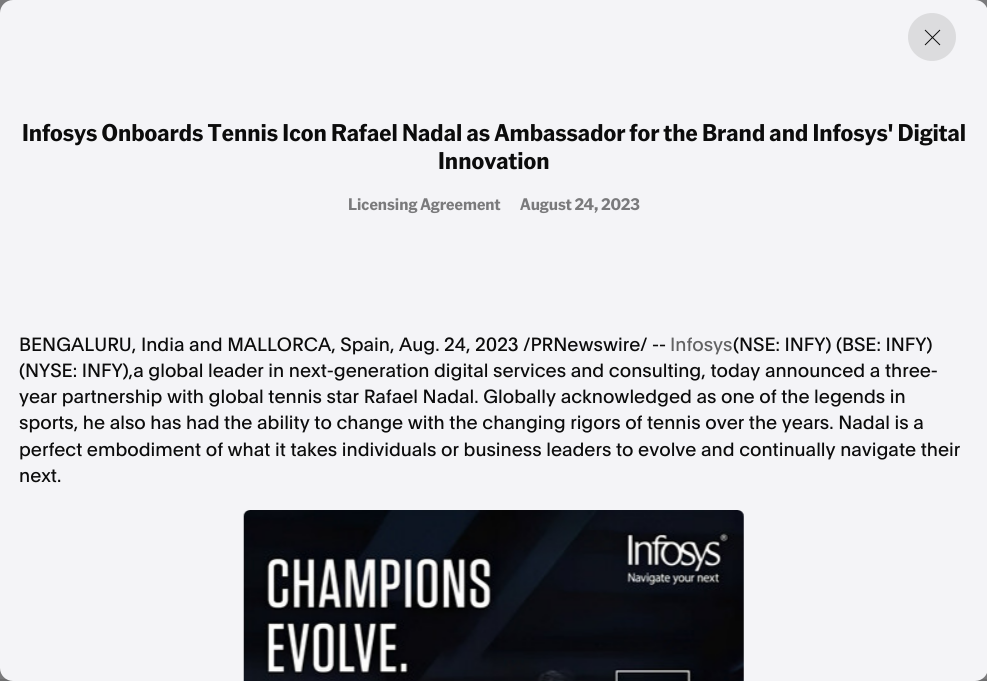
#include <cairo.h>
#include <math.h>
#include <stddef.h>


static void rgb(cairo_t *cr, int r, int g, int b)
{
	cairo_set_source_rgb(cr, r / 255.0, g / 255.0, b / 255.0);
}

static void face(cairo_t *cr, const char *family, double size, int italic, int bold)
{
	cairo_select_font_face(cr, family, italic ? CAIRO_FONT_SLANT_ITALIC : CAIRO_FONT_SLANT_NORMAL,
		bold ? CAIRO_FONT_WEIGHT_BOLD : CAIRO_FONT_WEIGHT_NORMAL);
	cairo_set_font_size(cr, size);
}

static void label(cairo_t *cr, double x, double y, const char *s)
{
	cairo_move_to(cr, x, y);
	cairo_show_text(cr, s);
}

static void rect(cairo_t *cr, double x, double y, double w, double h)
{
	cairo_rectangle(cr, x, y, w, h);
	cairo_fill(cr);
}

static void rrect(cairo_t *cr, double x, double y, double w, double h, double r)
{
	cairo_new_sub_path(cr);
	cairo_arc(cr, x + w - r, y + h - r, r, 0, M_PI / 2);
	cairo_arc(cr, x + r, y + h - r, r, M_PI / 2, M_PI);
	cairo_arc(cr, x + r, y + r, r, M_PI, 1.5 * M_PI);
	cairo_arc(cr, x + w - r, y + r, r, 1.5 * M_PI, 2 * M_PI);
	cairo_close_path(cr);
}

static void image(cairo_t *cr, const char *path, double x, double y, double w, double h)
{
	cairo_surface_t *image = cairo_image_surface_create_from_png(path);
	cairo_save(cr);
	cairo_set_source_surface(cr, image, x, y);
	cairo_rectangle(cr, x, y, w, h);
	cairo_fill(cr);
	cairo_restore(cr);
	cairo_surface_destroy(image);
}

static void draw(cairo_t *cr) {
	rgb(cr, 122, 122, 124);
	cairo_paint(cr);
	rgb(cr, 110, 110, 111);
	rect(cr, 0, 679, 987, 2);
	rgb(cr, 244, 244, 247);
	rrect(cr, 0, 0, 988, 681, 13);
	cairo_fill(cr);
	rgb(cr, 220, 220, 222);
	cairo_arc(cr, 932, 37, 24, 0, 2 * M_PI);
	cairo_fill(cr);
	cairo_new_path(cr);
	cairo_move_to(cr, 940, 30);
	cairo_line_to(cr, 925, 45);
	cairo_move_to(cr, 940, 45);
	cairo_line_to(cr, 925, 30);
	rgb(cr, 12, 12, 12);
	cairo_set_line_width(cr, 1);
	cairo_set_line_join(cr, CAIRO_LINE_JOIN_ROUND);
	cairo_stroke(cr);
	face(cr, "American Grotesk", 23.45, 0, 1);
	label(cr, 22, 141, "Infosys Onboards Tennis Icon Rafael Nadal as Ambassador for the Brand and Infosys' Digital");
	label(cr, 438, 169, "Innovation");
	face(cr, "American Grotesk", 16.25, 0, 1);
	rgb(cr, 122, 122, 124);
	label(cr, 348, 210, "Licensing Agreement");
	label(cr, 520, 210, "August 24, 2023");
	face(cr, "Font", 18.75, 0, 0);
	rgb(cr, 12, 12, 12);
	label(cr, 19, 351, "BENGALURU, India and MALLORCA, Spain, Aug. 24, 2023 /PRNewswire/ --");
	rgb(cr, 98, 98, 99);
	label(cr, 670, 351, "Infosys");
	rgb(cr, 12, 12, 12);
	label(cr, 733, 351, "(NSE: INFY) (BSE: INFY)");
	label(cr, 19, 377, "(NYSE: INFY),a global leader in next-generation digital services and consulting, today announced a three-");
	label(cr, 19, 403, "year partnership with global tennis star Rafael Nadal. Globally acknowledged as one of the legends in");
	label(cr, 19, 429, "sports, he also has had the ability to change with the changing rigors of tennis over the years. Nadal is a");
	label(cr, 19, 456, "perfect embodiment of what it takes individuals or business leaders to evolve and continually navigate their");
	label(cr, 19, 482, "next.");
	image(cr, "image0.png", 243, 510, 501, 171);
}

int main(void) {
	cairo_surface_t *surface = cairo_image_surface_create(CAIRO_FORMAT_RGB24, 987, 681);
	cairo_t *cr = cairo_create(surface);
	cairo_font_options_t *options = cairo_font_options_create();
	cairo_font_options_set_hint_metrics(options, CAIRO_HINT_METRICS_OFF);
	cairo_font_options_set_hint_style(options, CAIRO_HINT_STYLE_NONE);
	cairo_set_font_options(cr, options);
	cairo_set_miter_limit(cr, 4);
	draw(cr);
	cairo_surface_write_to_png(surface, "render.png");
	cairo_font_options_destroy(options);
	cairo_destroy(cr);
	cairo_surface_destroy(surface);
	return 0;
}
